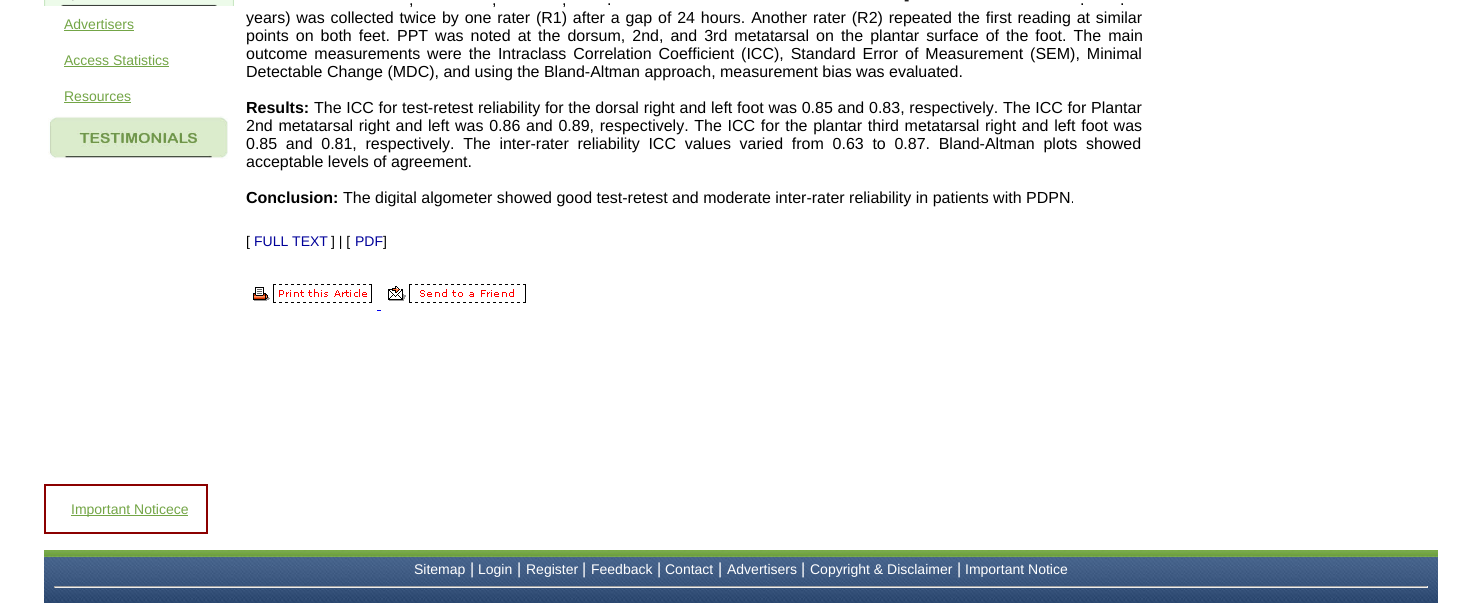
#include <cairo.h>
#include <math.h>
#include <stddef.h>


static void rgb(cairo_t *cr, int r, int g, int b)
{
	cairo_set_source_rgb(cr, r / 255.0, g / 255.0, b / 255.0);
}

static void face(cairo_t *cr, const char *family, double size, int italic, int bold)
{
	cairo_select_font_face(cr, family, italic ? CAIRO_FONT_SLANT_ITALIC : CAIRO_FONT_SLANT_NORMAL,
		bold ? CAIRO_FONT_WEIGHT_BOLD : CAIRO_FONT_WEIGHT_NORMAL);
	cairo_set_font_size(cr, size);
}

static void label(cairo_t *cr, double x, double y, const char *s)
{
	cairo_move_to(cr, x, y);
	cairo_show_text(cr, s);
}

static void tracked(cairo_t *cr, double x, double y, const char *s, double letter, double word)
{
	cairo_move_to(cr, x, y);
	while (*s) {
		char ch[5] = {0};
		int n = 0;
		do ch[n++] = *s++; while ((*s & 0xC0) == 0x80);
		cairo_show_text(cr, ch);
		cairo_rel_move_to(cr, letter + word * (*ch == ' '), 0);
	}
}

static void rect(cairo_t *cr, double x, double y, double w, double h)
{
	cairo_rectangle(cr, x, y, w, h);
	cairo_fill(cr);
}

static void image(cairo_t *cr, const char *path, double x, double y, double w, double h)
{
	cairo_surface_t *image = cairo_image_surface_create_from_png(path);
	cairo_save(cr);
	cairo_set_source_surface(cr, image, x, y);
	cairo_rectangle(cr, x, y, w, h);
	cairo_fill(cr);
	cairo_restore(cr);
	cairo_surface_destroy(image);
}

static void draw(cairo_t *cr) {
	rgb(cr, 255, 255, 255);
	cairo_paint(cr);
	image(cr, "image0.png", 44, 0, 190, 6);
	face(cr, "Liberation Sans", 14, 0, 0);
	rgb(cr, 115, 165, 70);
	label(cr, 64, 29, "Advertisers");
	rect(cr, 64, 30, 70, 1);
	label(cr, 64, 65, "Access Statistics");
	rect(cr, 64, 66, 105, 1);
	label(cr, 64, 101, "Resources");
	rect(cr, 64, 102, 67, 1);
	image(cr, "image1.png", 48, 116, 180, 43);
	cairo_rectangle(cr, 45, 485, 162, 48);
	rgb(cr, 139, 0, 0);
	cairo_stroke(cr);
	rgb(cr, 115, 165, 70);
	rect(cr, 71, 515, 117, 1);
	label(cr, 71, 514, "Important Noticece");
	face(cr, "Liberation Sans", 16, 0, 0);
	rgb(cr, 0, 0, 0);
	tracked(cr, 904, 5, "-", 0, 1);
	tracked(cr, 409, 5, ",", 0, 1);
	tracked(cr, 492, 5, ",", 0, 1);
	tracked(cr, 562, 5, ",", 0, 1);
	tracked(cr, 607, 5, ".", 0, 1);
	tracked(cr, 1080, 5, ".", 0, 1);
	tracked(cr, 1120, 5, ".", 0, 1);
	tracked(cr, 246, 23, "years) was collected twice by one rater (R1) after a gap of 24 hours. Another rater (R2) repeated the first reading at similar", 0, 1.4);
	tracked(cr, 246, 41, "points on both feet. PPT was noted at the dorsum, 2nd, and 3rd metatarsal on the plantar surface of the foot. The main", 0, 2.6);
	tracked(cr, 246, 59, "outcome measurements were the Intraclass Correlation Coefficient (ICC), Standard Error of Measurement (SEM), Minimal", 0, 2.5);
	label(cr, 246, 77, "Detectable Change (MDC), and using the Bland-Altman approach, measurement bias was evaluated.");
	face(cr, "Liberation Sans", 16, 0, 1);
	label(cr, 246, 113, "Results:");
	face(cr, "Liberation Sans", 16, 0, 0);
	tracked(cr, 314, 113, "The ICC for test-retest reliability for the dorsal right and left foot was 0.85 and 0.83, respectively. The ICC for Plantar", 0, 0.3);
	tracked(cr, 246, 131, "2nd metatarsal right and left was 0.86 and 0.89, respectively. The ICC for the plantar third metatarsal right and left foot was", 0, 1.25);
	tracked(cr, 246, 149, "0.85 and 0.81, respectively. The inter-rater reliability ICC values varied from 0.63 to 0.87. Bland-Altman plots showed", 0, 4.25);
	label(cr, 246, 167, "acceptable levels of agreement.");
	face(cr, "Liberation Sans", 16, 0, 1);
	label(cr, 246, 203, "Conclusion:");
	face(cr, "Liberation Sans", 16, 0, 0);
	label(cr, 343, 203, "The digital algometer showed good test-retest and moderate inter-rater reliability in patients with PDPN.");
	face(cr, "Liberation Sans", 14, 0, 0);
	label(cr, 246, 246, "[");
	rgb(cr, 0, 0, 153);
	label(cr, 254, 246, "FULL TEXT");
	rgb(cr, 0, 0, 0);
	label(cr, 331, 246, "] | [");
	rgb(cr, 0, 0, 153);
	label(cr, 355, 246, "PDF");
	rgb(cr, 0, 0, 0);
	label(cr, 383, 246, "]");
	image(cr, "image2.png", 253, 284, 119, 19);
	image(cr, "image3.png", 388, 284, 138, 19);
	rgb(cr, 0, 0, 238);
	rect(cr, 377, 310, 4, 1);
	image(cr, "image4.png", 44, 550, 1394, 53);
	rgb(cr, 255, 255, 255);
	label(cr, 414, 574, "Sitemap");
	face(cr, "Liberation Sans", 16, 0, 0);
	label(cr, 470, 574, "|");
	face(cr, "Liberation Sans", 14, 0, 0);
	label(cr, 478, 574, "Login");
	face(cr, "Liberation Sans", 16, 0, 0);
	label(cr, 517, 574, "|");
	face(cr, "Liberation Sans", 14, 0, 0);
	label(cr, 526, 574, "Register");
	face(cr, "Liberation Sans", 16, 0, 0);
	label(cr, 582, 574, "|");
	face(cr, "Liberation Sans", 14, 0, 0);
	label(cr, 591, 574, "Feedback");
	face(cr, "Liberation Sans", 16, 0, 0);
	label(cr, 657, 574, "|");
	face(cr, "Liberation Sans", 14, 0, 0);
	label(cr, 665, 574, "Contact");
	face(cr, "Liberation Sans", 16, 0, 0);
	label(cr, 718, 574, "|");
	face(cr, "Liberation Sans", 14, 0, 0);
	label(cr, 727, 574, "Advertisers");
	face(cr, "Liberation Sans", 16, 0, 0);
	label(cr, 801, 574, "|");
	face(cr, "Liberation Sans", 14, 0, 0);
	label(cr, 810, 574, "Copyright & Disclaimer");
	face(cr, "Liberation Sans", 16, 0, 0);
	label(cr, 957, 574, "|");
	face(cr, "Liberation Sans", 14, 0, 0);
	label(cr, 965, 574, "Important Notice");
	rgb(cr, 159, 159, 159);
	rect(cr, 54, 586, 1374, 1);
	rgb(cr, 238, 238, 238);
	rect(cr, 1427, 586, 1, 2);
	rect(cr, 54, 587, 1374, 1);
	rgb(cr, 159, 159, 159);
	rect(cr, 54, 586, 1, 2);
}

int main(void) {
	cairo_surface_t *surface = cairo_image_surface_create(CAIRO_FORMAT_RGB24, 1462, 603);
	cairo_t *cr = cairo_create(surface);
	cairo_font_options_t *options = cairo_font_options_create();
	cairo_font_options_set_hint_metrics(options, CAIRO_HINT_METRICS_OFF);
	cairo_font_options_set_hint_style(options, CAIRO_HINT_STYLE_NONE);
	cairo_set_font_options(cr, options);
	cairo_set_miter_limit(cr, 4);
	draw(cr);
	cairo_surface_write_to_png(surface, "render.png");
	cairo_font_options_destroy(options);
	cairo_destroy(cr);
	cairo_surface_destroy(surface);
	return 0;
}
